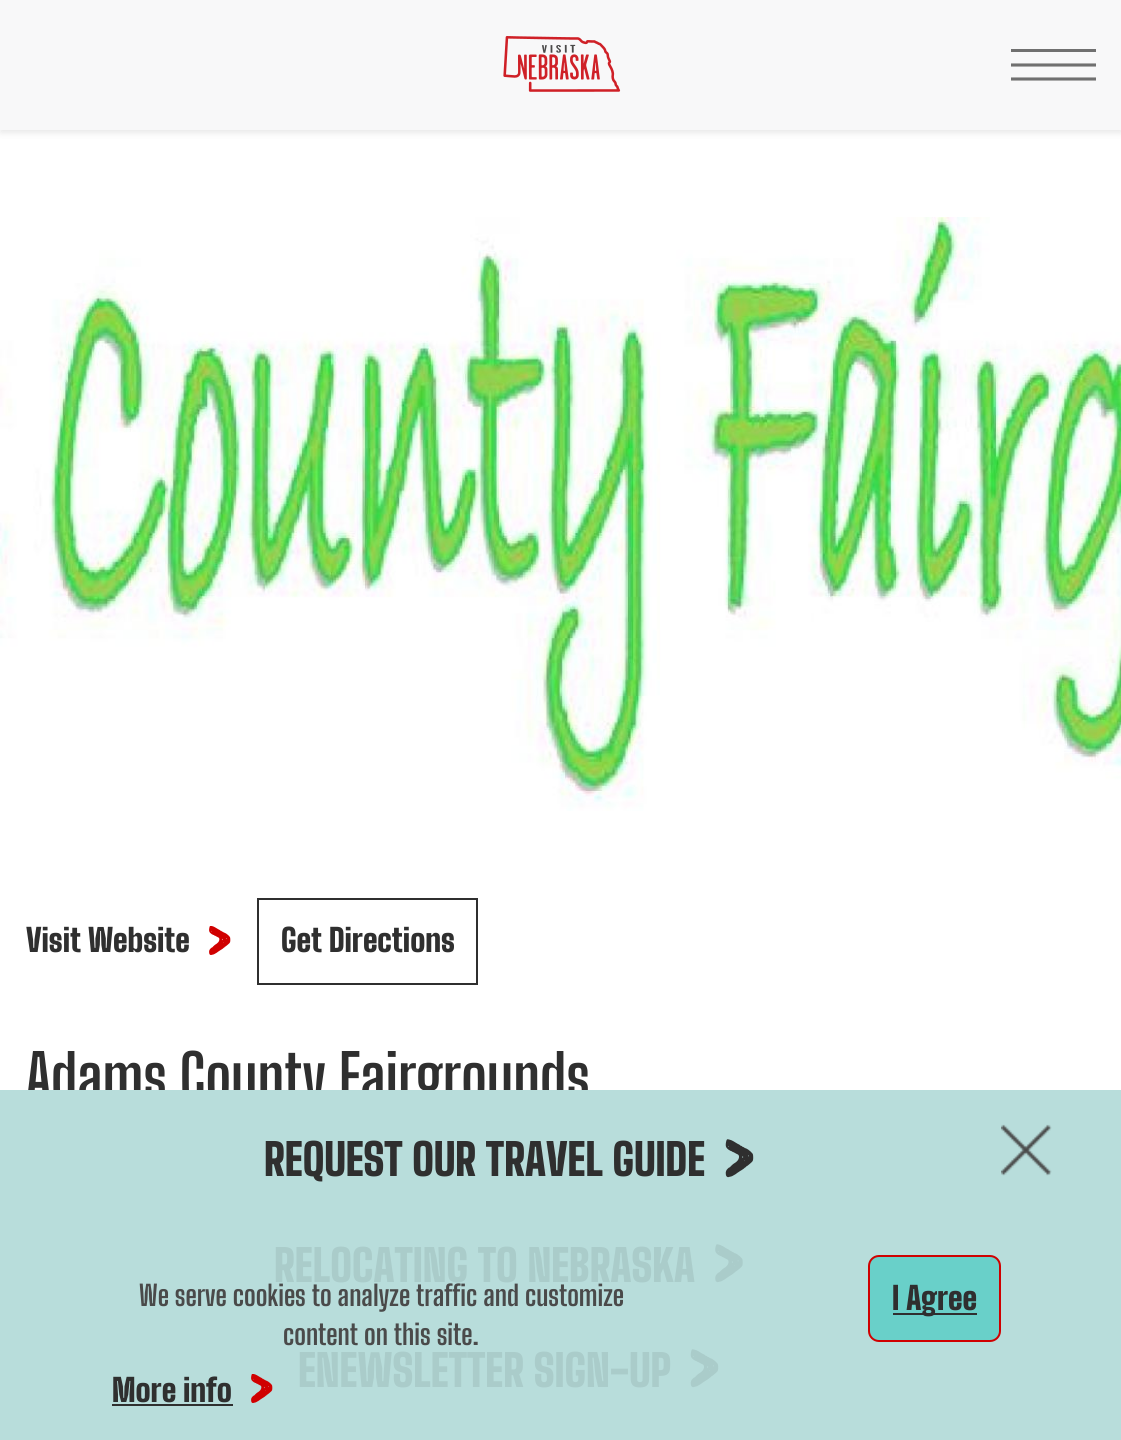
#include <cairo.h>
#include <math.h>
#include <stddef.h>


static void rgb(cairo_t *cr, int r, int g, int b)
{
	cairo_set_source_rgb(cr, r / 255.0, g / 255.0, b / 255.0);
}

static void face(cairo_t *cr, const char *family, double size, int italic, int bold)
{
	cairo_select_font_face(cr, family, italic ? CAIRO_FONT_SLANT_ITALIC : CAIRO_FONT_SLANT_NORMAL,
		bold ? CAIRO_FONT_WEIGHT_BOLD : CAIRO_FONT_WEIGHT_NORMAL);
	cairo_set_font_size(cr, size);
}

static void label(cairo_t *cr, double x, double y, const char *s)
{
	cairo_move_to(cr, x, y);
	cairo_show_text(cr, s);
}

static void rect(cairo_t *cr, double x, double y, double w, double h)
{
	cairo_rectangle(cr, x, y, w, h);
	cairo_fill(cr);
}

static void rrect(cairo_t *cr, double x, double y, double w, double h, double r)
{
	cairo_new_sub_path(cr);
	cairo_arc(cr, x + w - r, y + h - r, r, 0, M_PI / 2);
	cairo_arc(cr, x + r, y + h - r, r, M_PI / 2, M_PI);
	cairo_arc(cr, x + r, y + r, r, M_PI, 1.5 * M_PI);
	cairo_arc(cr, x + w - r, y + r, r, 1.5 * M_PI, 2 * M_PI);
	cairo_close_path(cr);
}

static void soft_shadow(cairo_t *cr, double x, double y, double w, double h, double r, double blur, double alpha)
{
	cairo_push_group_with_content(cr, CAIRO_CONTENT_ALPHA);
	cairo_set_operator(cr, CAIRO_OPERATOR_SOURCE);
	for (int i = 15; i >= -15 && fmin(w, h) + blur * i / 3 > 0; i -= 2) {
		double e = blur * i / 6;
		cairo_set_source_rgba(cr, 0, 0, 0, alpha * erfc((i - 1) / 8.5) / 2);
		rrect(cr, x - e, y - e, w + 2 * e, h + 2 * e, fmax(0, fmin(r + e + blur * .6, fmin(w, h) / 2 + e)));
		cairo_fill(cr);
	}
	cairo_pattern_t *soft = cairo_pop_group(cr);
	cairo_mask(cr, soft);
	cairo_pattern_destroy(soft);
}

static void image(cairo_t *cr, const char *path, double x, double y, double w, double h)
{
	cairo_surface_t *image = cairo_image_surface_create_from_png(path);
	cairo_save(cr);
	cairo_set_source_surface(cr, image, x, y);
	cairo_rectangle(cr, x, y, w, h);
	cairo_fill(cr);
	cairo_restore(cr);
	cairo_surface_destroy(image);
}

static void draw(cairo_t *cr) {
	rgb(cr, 255, 255, 255);
	cairo_paint(cr);
	rgb(cr, 0, 0, 0);
	soft_shadow(cr, 0, 4, 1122, 129, 0, 3.5, 0.09);
	rgb(cr, 248, 248, 249);
	rect(cr, 0, 0, 1121, 130);
	image(cr, "image0.png", 503, 36, 118, 56);
	rgb(cr, 112, 112, 112);
	rect(cr, 1011, 49, 85, 3);
	cairo_new_path(cr);
	cairo_move_to(cr, 1096, 65);
	cairo_line_to(cr, 1011, 65);
	cairo_set_line_width(cr, 3.1);
	cairo_stroke(cr);
	cairo_new_path(cr);
	cairo_move_to(cr, 1096, 79);
	cairo_line_to(cr, 1011, 79);
	cairo_stroke(cr);
	image(cr, "image1.png", 0, 217, 1121, 594);
	face(cr, "Big Shoulders Display Black", 31.5, 0, 0);
	rgb(cr, 47, 47, 47);
	label(cr, 26, 952, "Visit Website");
	image(cr, "image2.png", 209, 926, 22, 29);
	cairo_rectangle(cr, 258, 899, 219, 85);
	cairo_set_line_width(cr, 2);
	cairo_stroke(cr);
	label(cr, 281, 952, "Get Directions");
	face(cr, "Big Shoulders Display", 61.25, 0, 1);
	label(cr, 26, 1100, "Adams County Fairgrounds");
	rgb(cr, 184, 221, 219);
	rect(cr, 0, 1090, 1121, 350);
	face(cr, "Big Shoulders Display Black", 43.75, 0, 0);
	rgb(cr, 47, 47, 47);
	label(cr, 264, 1176, "REQUEST OUR TRAVEL GUIDE");
	image(cr, "image3.png", 725, 1139, 29, 39);
	rgb(cr, 170, 204, 202);
	label(cr, 274, 1282, "RELOCATING TO NEBRASKA");
	image(cr, "image4.png", 715, 1244, 28, 39);
	label(cr, 298, 1387, "ENEWSLETTER SIGN-UP");
	image(cr, "image5.png", 690, 1349, 29, 39);
	image(cr, "image6.png", 1001, 1124, 51, 52);
	face(cr, "Big Shoulders Display", 28, 0, 1);
	rgb(cr, 74, 74, 74);
	label(cr, 139, 1306, "We serve cookies to analyze traffic and customize");
	label(cr, 283, 1345, "content on this site.");
	image(cr, "image7.png", 251, 1374, 22, 29);
	face(cr, "Big Shoulders Display Black", 31.5, 0, 0);
	rgb(cr, 47, 47, 47);
	label(cr, 112, 1402, "More info");
	rect(cr, 112, 1404, 121, 2);
	rgb(cr, 105, 208, 201);
	rrect(cr, 869, 1256, 131, 85, 10);
	cairo_fill_preserve(cr);
	rgb(cr, 208, 0, 0);
	cairo_stroke(cr);
	rgb(cr, 47, 47, 47);
	rect(cr, 893, 1313, 84, 2);
	label(cr, 892, 1310, "I Agree");
}

int main(void) {
	cairo_surface_t *surface = cairo_image_surface_create(CAIRO_FORMAT_RGB24, 1121, 1440);
	cairo_t *cr = cairo_create(surface);
	cairo_font_options_t *options = cairo_font_options_create();
	cairo_font_options_set_hint_metrics(options, CAIRO_HINT_METRICS_OFF);
	cairo_font_options_set_hint_style(options, CAIRO_HINT_STYLE_NONE);
	cairo_set_font_options(cr, options);
	cairo_set_miter_limit(cr, 4);
	draw(cr);
	cairo_surface_write_to_png(surface, "render.png");
	cairo_font_options_destroy(options);
	cairo_destroy(cr);
	cairo_surface_destroy(surface);
	return 0;
}
